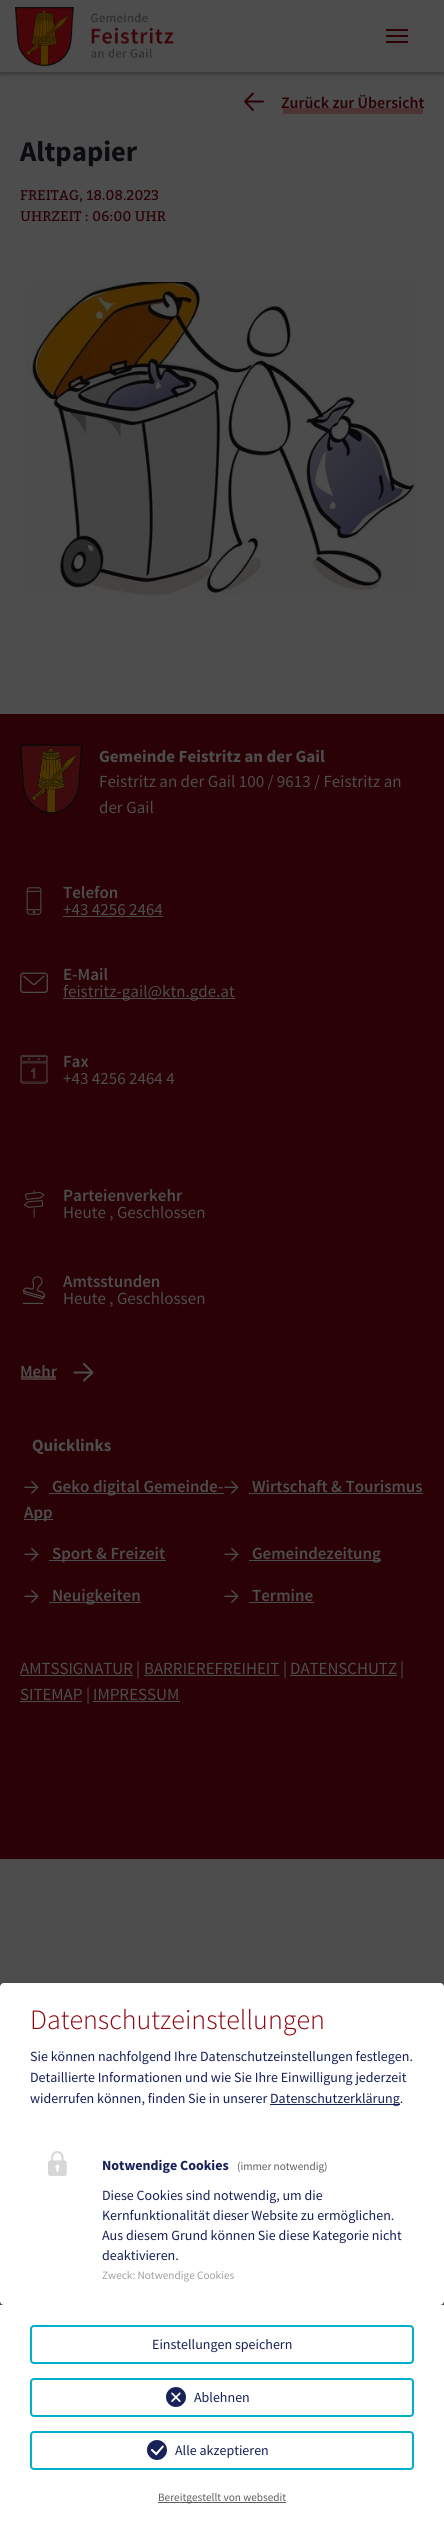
#include <cairo.h>
#include <math.h>
#include <stddef.h>


static void rgb(cairo_t *cr, int r, int g, int b)
{
	cairo_set_source_rgb(cr, r / 255.0, g / 255.0, b / 255.0);
}

static void face(cairo_t *cr, const char *family, double size, int italic, int bold)
{
	cairo_select_font_face(cr, family, italic ? CAIRO_FONT_SLANT_ITALIC : CAIRO_FONT_SLANT_NORMAL,
		bold ? CAIRO_FONT_WEIGHT_BOLD : CAIRO_FONT_WEIGHT_NORMAL);
	cairo_set_font_size(cr, size);
}

static void label(cairo_t *cr, double x, double y, const char *s)
{
	cairo_move_to(cr, x, y);
	cairo_show_text(cr, s);
}

static void rect(cairo_t *cr, double x, double y, double w, double h)
{
	cairo_rectangle(cr, x, y, w, h);
	cairo_fill(cr);
}

static void rrect(cairo_t *cr, double x, double y, double w, double h, double r)
{
	cairo_new_sub_path(cr);
	cairo_arc(cr, x + w - r, y + h - r, r, 0, M_PI / 2);
	cairo_arc(cr, x + r, y + h - r, r, M_PI / 2, M_PI);
	cairo_arc(cr, x + r, y + r, r, M_PI, 1.5 * M_PI);
	cairo_arc(cr, x + w - r, y + r, r, 1.5 * M_PI, 2 * M_PI);
	cairo_close_path(cr);
}

static void soft_shadow(cairo_t *cr, double x, double y, double w, double h, double r, double blur, double alpha)
{
	cairo_push_group_with_content(cr, CAIRO_CONTENT_ALPHA);
	cairo_set_operator(cr, CAIRO_OPERATOR_SOURCE);
	for (int i = 15; i >= -15 && fmin(w, h) + blur * i / 3 > 0; i -= 2) {
		double e = blur * i / 6;
		cairo_set_source_rgba(cr, 0, 0, 0, alpha * erfc((i - 1) / 8.5) / 2);
		rrect(cr, x - e, y - e, w + 2 * e, h + 2 * e, fmax(0, fmin(r + e + blur * .6, fmin(w, h) / 2 + e)));
		cairo_fill(cr);
	}
	cairo_pattern_t *soft = cairo_pop_group(cr);
	cairo_mask(cr, soft);
	cairo_pattern_destroy(soft);
}

static void image(cairo_t *cr, const char *path, double x, double y, double w, double h)
{
	cairo_surface_t *image = cairo_image_surface_create_from_png(path);
	cairo_save(cr);
	cairo_set_source_surface(cr, image, x, y);
	cairo_rectangle(cr, x, y, w, h);
	cairo_fill(cr);
	cairo_restore(cr);
	cairo_surface_destroy(image);
}

static void draw(cairo_t *cr) {
	rgb(cr, 77, 77, 77);
	cairo_paint(cr);
	cairo_save(cr);
	cairo_rectangle(cr, 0, 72, 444, 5);
	cairo_clip(cr);
	rgb(cr, 0, 0, 0);
	soft_shadow(cr, 0, 2, 444, 72, 0, 2, 0.3);
	cairo_restore(cr);
	image(cr, "image0.png", 15, 7, 159, 59);
	rgb(cr, 42, 1, 4);
	rect(cr, 386, 35, 22, 2);
	rect(cr, 386, 29, 22, 2);
	rect(cr, 386, 41, 22, 2);
	cairo_new_path(cr);
	cairo_move_to(cr, 253, 110);
	cairo_line_to(cr, 245, 101.5);
	cairo_line_to(cr, 253, 93.5);
	cairo_move_to(cr, 246.5, 101.5);
	cairo_line_to(cr, 263, 101.5);
	cairo_set_line_cap(cr, CAIRO_LINE_CAP_ROUND);
	cairo_set_line_join(cr, CAIRO_LINE_JOIN_ROUND);
	cairo_stroke(cr);
	rgb(cr, 77, 52, 52);
	rect(cr, 283, 108, 140, 6);
	face(cr, "Source Sans Pro SemiBold", 16, 0, 0);
	rgb(cr, 42, 1, 4);
	label(cr, 281, 108, "Zurück zur Übersicht");
	face(cr, "Source Sans Pro", 28.5, 0, 1);
	rgb(cr, 11, 12, 16);
	label(cr, 20, 161, "Altpapier");
	face(cr, "Bitter", 14, 0, 0);
	rgb(cr, 42, 1, 4);
	label(cr, 20, 200, "FREITAG, 18.08.2023");
	label(cr, 20, 221, "UHRZEIT : 06:00 UHR");
	image(cr, "image1.png", 26, 282, 390, 314);
	rect(cr, 0, 714, 444, 1145);
	image(cr, "image2.png", 20, 744, 63, 70);
	face(cr, "Source Sans Pro", 17, 0, 1);
	rgb(cr, 77, 77, 77);
	label(cr, 99, 762, "Gemeinde Feistritz an der Gail");
	face(cr, "Source Sans Pro", 17, 0, 0);
	label(cr, 99, 787, "Feistritz an der Gail 100 / 9613 / Feistritz an");
	label(cr, 99, 813, "der Gail");
	image(cr, "image3.png", 26, 887, 16, 28);
	face(cr, "Source Sans Pro SemiBold", 17, 0, 0);
	label(cr, 63, 898, "Telefon");
	face(cr, "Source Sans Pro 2", 17, 0, 0);
	label(cr, 63, 915, "+43 4256 2464");
	rect(cr, 63, 916, 100, 1);
	image(cr, "image4.png", 20, 972, 28, 21);
	face(cr, "Source Sans Pro SemiBold", 17, 0, 0);
	label(cr, 63, 980, "E-Mail");
	rect(cr, 63, 998, 172, 1);
	face(cr, "Source Sans Pro 2", 17, 0, 0);
	label(cr, 63, 997, "feistritz-gail@ktn.gde.at");
	image(cr, "image5.png", 20, 1054, 28, 30);
	face(cr, "Source Sans Pro SemiBold", 17, 0, 0);
	label(cr, 63, 1067, "Fax");
	face(cr, "Source Sans Pro 2", 17, 0, 0);
	label(cr, 63, 1084, "+43 4256 2464 4");
	image(cr, "image6.png", 23, 1190, 22, 28);
	face(cr, "Source Sans Pro SemiBold", 17, 0, 0);
	label(cr, 63, 1201, "Parteienverkehr");
	face(cr, "Source Sans Pro 2", 17, 0, 0);
	label(cr, 63, 1218, "Heute , Geschlossen");
	image(cr, "image7.png", 22, 1276, 24, 28);
	face(cr, "Source Sans Pro SemiBold", 17, 0, 0);
	label(cr, 63, 1287, "Amtsstunden");
	face(cr, "Source Sans Pro 2", 17, 0, 0);
	label(cr, 63, 1304, "Heute , Geschlossen");
	rgb(cr, 77, 52, 52);
	rect(cr, 21, 1376, 35, 4);
	face(cr, "Source Sans Pro SemiBold", 17, 0, 0);
	rgb(cr, 77, 77, 77);
	label(cr, 20, 1377, "Mehr");
	cairo_new_path(cr);
	cairo_move_to(cr, 84, 1364);
	cairo_line_to(cr, 92.5, 1372.5);
	cairo_line_to(cr, 84, 1380.5);
	cairo_move_to(cr, 91, 1372.5);
	cairo_line_to(cr, 74.5, 1372.5);
	cairo_stroke(cr);
	face(cr, "Source Sans Pro", 17, 0, 1);
	label(cr, 32, 1451, "Quicklinks");
	image(cr, "image8.png", 24, 1480, 15, 14);
	rect(cr, 49, 1493, 175, 1);
	face(cr, "Source Sans Pro SemiBold", 17, 0, 0);
	label(cr, 52, 1492, "Geko digital Gemeinde-");
	rect(cr, 24, 1519, 29, 1);
	label(cr, 24, 1518, "App");
	image(cr, "image8.png", 224, 1480, 15, 14);
	label(cr, 252, 1492, "Wirtschaft & Tourismus");
	rect(cr, 249, 1493, 174, 1);
	image(cr, "image8.png", 24, 1547, 15, 14);
	rect(cr, 49, 1560, 117, 1);
	label(cr, 52, 1559, "Sport & Freizeit");
	image(cr, "image8.png", 224, 1547, 15, 14);
	rect(cr, 249, 1560, 132, 1);
	label(cr, 252, 1559, "Gemeindezeitung");
	image(cr, "image8.png", 24, 1589, 15, 14);
	rect(cr, 49, 1602, 92, 1);
	label(cr, 52, 1601, "Neuigkeiten");
	image(cr, "image8.png", 224, 1589, 15, 14);
	label(cr, 252, 1601, "Termine");
	rect(cr, 249, 1602, 65, 1);
	face(cr, "Source Sans Pro 2", 17, 0, 0);
	label(cr, 20, 1674, "AMTSSIGNATUR");
	rect(cr, 20, 1675, 113, 1);
	face(cr, "Source Sans Pro", 17, 0, 0);
	label(cr, 136, 1674, "|");
	face(cr, "Source Sans Pro 2", 17, 0, 0);
	label(cr, 144, 1674, "BARRIEREFREIHEIT");
	rect(cr, 144, 1675, 135, 1);
	face(cr, "Source Sans Pro", 17, 0, 0);
	label(cr, 283, 1674, "|");
	face(cr, "Source Sans Pro 2", 17, 0, 0);
	label(cr, 290, 1674, "DATENSCHUTZ");
	rect(cr, 290, 1675, 107, 1);
	face(cr, "Source Sans Pro", 17, 0, 0);
	label(cr, 400, 1674, "|");
	face(cr, "Source Sans Pro 2", 17, 0, 0);
	label(cr, 20, 1700, "SITEMAP");
	rect(cr, 20, 1701, 62, 1);
	face(cr, "Source Sans Pro", 17, 0, 0);
	label(cr, 86, 1700, "|");
	face(cr, "Source Sans Pro 2", 17, 0, 0);
	label(cr, 93, 1700, "IMPRESSUM");
	rect(cr, 93, 1701, 87, 1);
	rgb(cr, 0, 0, 0);
	soft_shadow(cr, 5, 1988, 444, 322, 4, 5, 0.19);
	soft_shadow(cr, 0, 1987, 444, 322, 4, 3, 0.2);
	rgb(cr, 255, 255, 255);
	rrect(cr, 0, 1983, 444, 322, 4);
	cairo_fill(cr);
	face(cr, "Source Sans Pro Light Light", 28, 0, 0);
	rgb(cr, 141, 2, 12);
	label(cr, 30, 2029, "Datenschutzeinstellungen");
	face(cr, "Source Sans Pro", 14, 0, 0);
	rgb(cr, 22, 31, 87);
	label(cr, 30, 2061, "Sie können nachfolgend Ihre Datenschutzeinstellungen festlegen.");
	label(cr, 30, 2082, "Detaillierte Informationen und wie Sie Ihre Einwilligung jederzeit");
	label(cr, 30, 2103, "widerrufen können, finden Sie in unserer");
	rect(cr, 270, 2104, 130, 1);
	label(cr, 270, 2103, "Datenschutzerklärung.");
	image(cr, "image9.png", 48, 2151, 19, 25);
	face(cr, "Source Sans Pro 2", 14, 0, 1);
	label(cr, 102, 2170, "Notwendige Cookies");
	face(cr, "Source Sans Pro", 11.25, 0, 0);
	rgb(cr, 92, 92, 92);
	label(cr, 237, 2170, "(immer notwendig)");
	face(cr, "Source Sans Pro", 14, 0, 0);
	rgb(cr, 22, 31, 87);
	label(cr, 102, 2200, "Diese Cookies sind notwendig, um die");
	label(cr, 102, 2220, "Kernfunktionalität dieser Website zu ermöglichen.");
	label(cr, 102, 2240, "Aus diesem Grund können Sie diese Kategorie nicht");
	label(cr, 102, 2260, "deaktivieren.");
	face(cr, "Source Sans Pro", 11.25, 0, 0);
	rgb(cr, 160, 160, 160);
	label(cr, 102, 2279, "Zweck: Notwendige Cookies");
	rgb(cr, 255, 255, 255);
	rect(cr, 0, 2305, 444, 220);
	rrect(cr, 31, 2326, 382, 37, 3);
	rgb(cr, 0, 175, 203);
	cairo_set_line_cap(cr, CAIRO_LINE_CAP_BUTT);
	cairo_set_line_join(cr, CAIRO_LINE_JOIN_MITER);
	cairo_stroke(cr);
	face(cr, "Source Sans Pro", 14, 0, 0);
	rgb(cr, 22, 31, 87);
	label(cr, 152, 2349, "Einstellungen speichern");
	rrect(cr, 31, 2379, 382, 37, 3);
	rgb(cr, 0, 175, 203);
	cairo_stroke(cr);
	image(cr, "image10.png", 166, 2387, 20, 20);
	rgb(cr, 22, 31, 87);
	label(cr, 194, 2402, "Ablehnen");
	rrect(cr, 31, 2432, 382, 37, 3);
	rgb(cr, 0, 175, 203);
	cairo_stroke(cr);
	image(cr, "image11.png", 147, 2440, 20, 20);
	rgb(cr, 22, 31, 87);
	label(cr, 175, 2455, "Alle akzeptieren");
	rgb(cr, 92, 92, 92);
	rect(cr, 158, 2502, 128, 1);
	face(cr, "Source Sans Pro", 11.25, 0, 0);
	label(cr, 158, 2501, "Bereitgestellt von websedit");
}

int main(void) {
	cairo_surface_t *surface = cairo_image_surface_create(CAIRO_FORMAT_RGB24, 444, 2525);
	cairo_t *cr = cairo_create(surface);
	cairo_font_options_t *options = cairo_font_options_create();
	cairo_font_options_set_hint_metrics(options, CAIRO_HINT_METRICS_OFF);
	cairo_font_options_set_hint_style(options, CAIRO_HINT_STYLE_NONE);
	cairo_set_font_options(cr, options);
	cairo_set_miter_limit(cr, 4);
	draw(cr);
	cairo_surface_write_to_png(surface, "render.png");
	cairo_font_options_destroy(options);
	cairo_destroy(cr);
	cairo_surface_destroy(surface);
	return 0;
}
